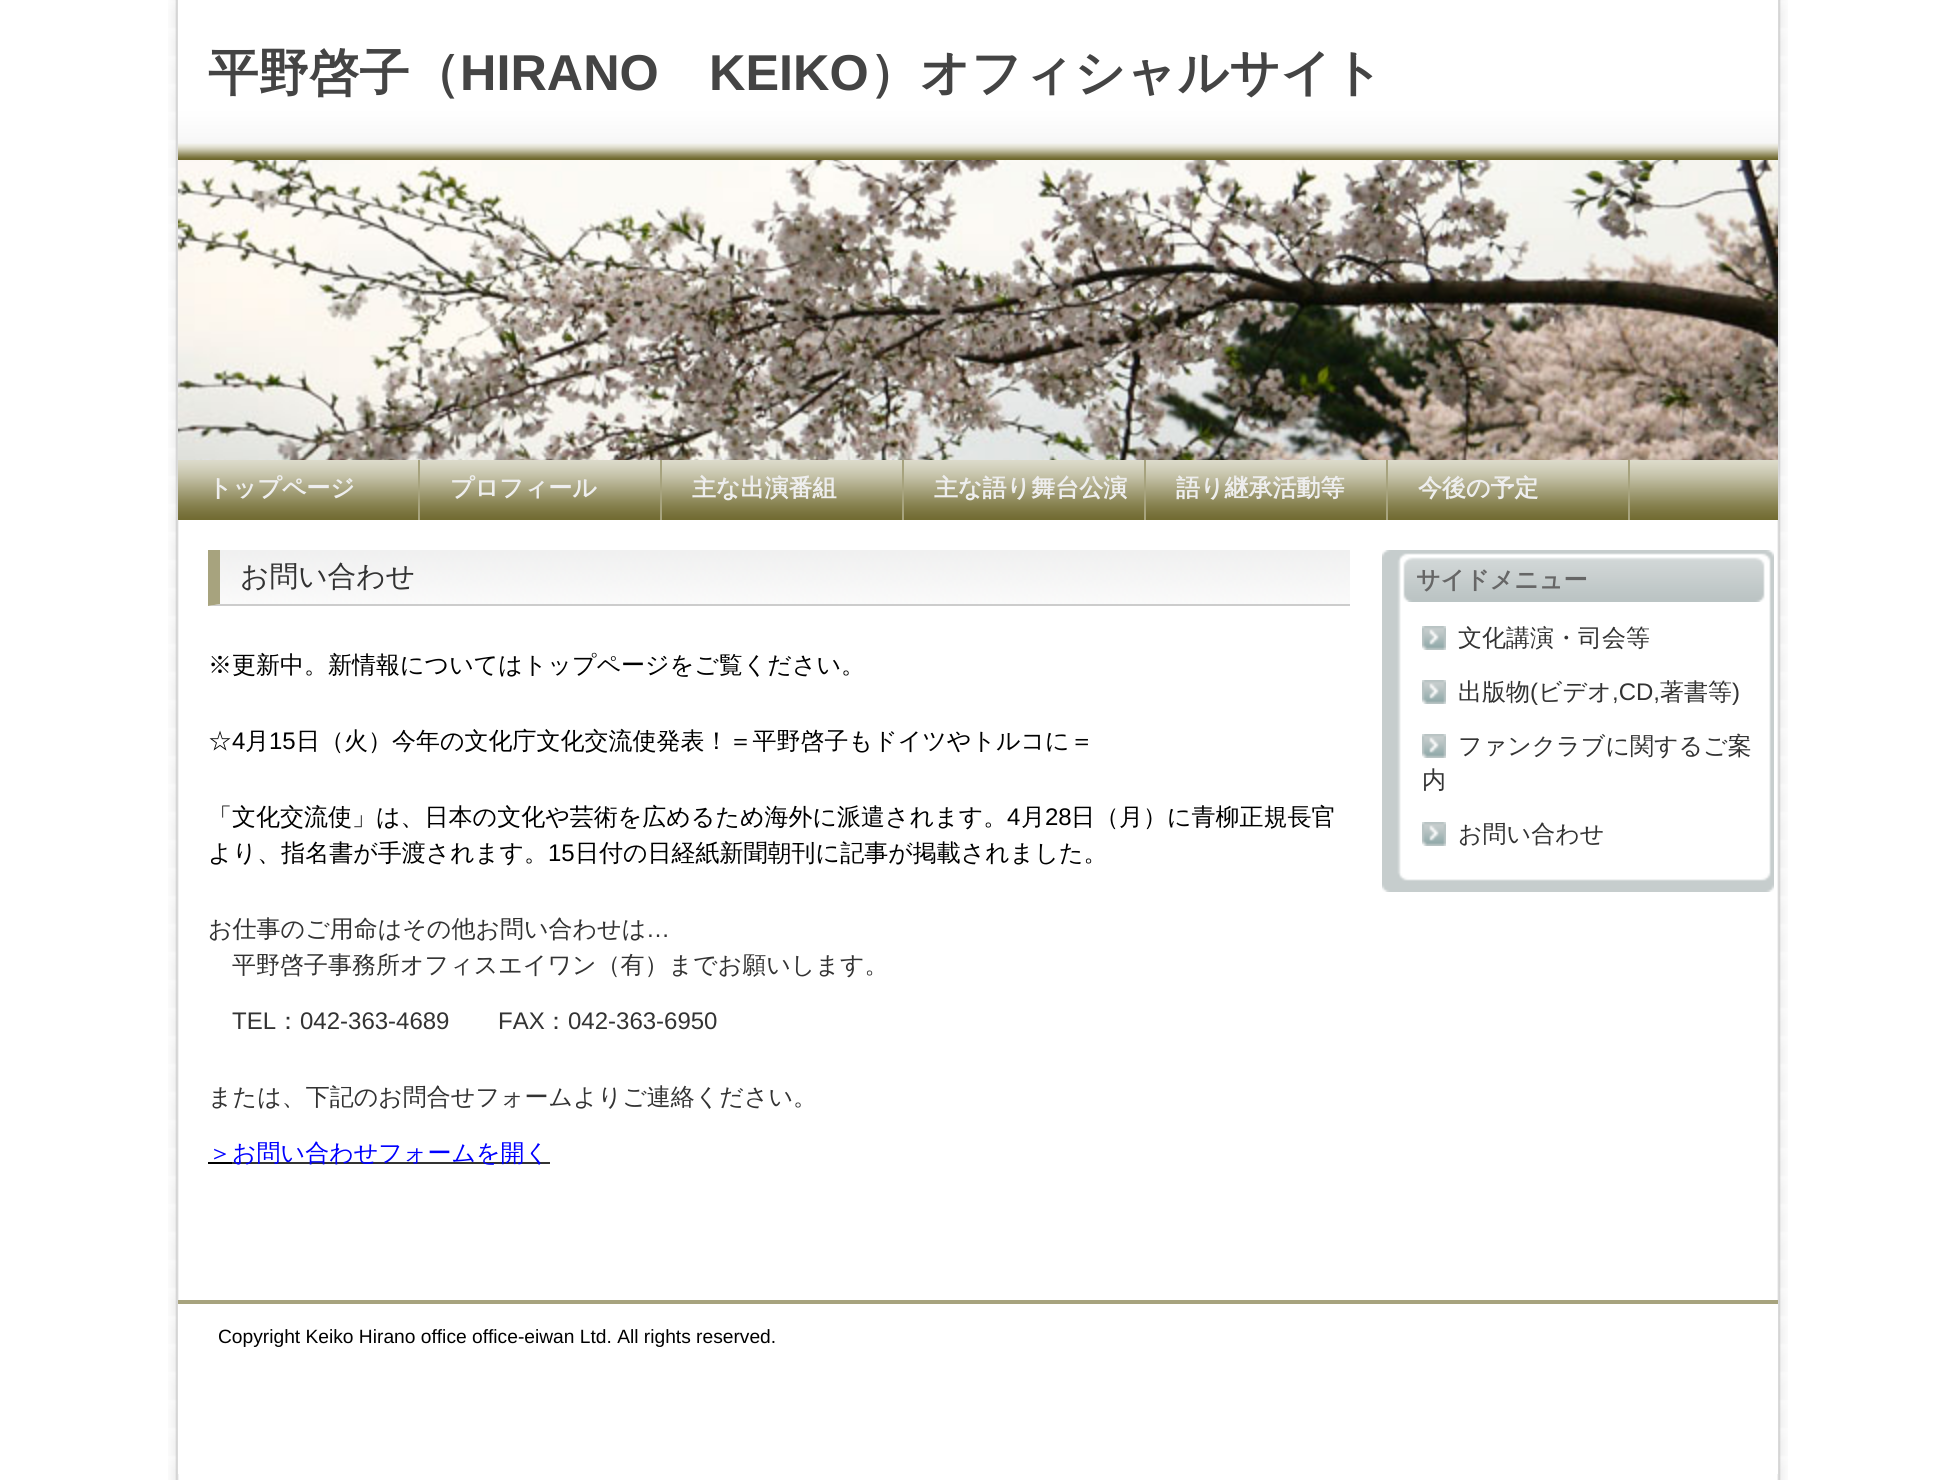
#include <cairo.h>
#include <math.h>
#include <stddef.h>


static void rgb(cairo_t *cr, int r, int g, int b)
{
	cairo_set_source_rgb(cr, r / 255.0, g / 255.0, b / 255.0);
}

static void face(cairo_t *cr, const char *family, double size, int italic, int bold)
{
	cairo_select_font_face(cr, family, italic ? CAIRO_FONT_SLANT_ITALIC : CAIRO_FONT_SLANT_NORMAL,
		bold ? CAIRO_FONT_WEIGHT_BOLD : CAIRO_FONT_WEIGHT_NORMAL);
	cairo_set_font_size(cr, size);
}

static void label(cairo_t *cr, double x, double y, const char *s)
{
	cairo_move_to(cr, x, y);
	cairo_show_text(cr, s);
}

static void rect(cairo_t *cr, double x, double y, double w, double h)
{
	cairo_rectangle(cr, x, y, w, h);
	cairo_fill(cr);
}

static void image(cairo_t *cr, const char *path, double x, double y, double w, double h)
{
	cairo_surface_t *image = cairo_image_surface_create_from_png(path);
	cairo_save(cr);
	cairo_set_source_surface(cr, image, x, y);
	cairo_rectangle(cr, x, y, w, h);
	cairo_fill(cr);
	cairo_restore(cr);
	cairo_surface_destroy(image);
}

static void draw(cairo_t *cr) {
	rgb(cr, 255, 255, 255);
	cairo_paint(cr);
	image(cr, "image0.png", 168, 0, 1620, 1480);
	image(cr, "image1.png", 178, 160, 1600, 300);
	image(cr, "image2.png", 178, 0, 1600, 160);
	face(cr, "WenQuanYi Zen Hei", 50.4, 0, 1);
	rgb(cr, 68, 68, 68);
	label(cr, 208, 90, "平野啓子（");
	face(cr, "Liberation Sans", 50.4, 0, 1);
	label(cr, 460, 90, "HIRANO");
	label(cr, 709, 90, "KEIKO");
	face(cr, "WenQuanYi Zen Hei", 50.4, 0, 1);
	label(cr, 869, 90, "）オフィシャルサイト");
	image(cr, "image3.png", 1630, 460, 148, 60);
	rgb(cr, 167, 163, 126);
	rect(cr, 418, 460, 2, 60);
	image(cr, "image4.png", 178, 460, 240, 60);
	face(cr, "WenQuanYi Zen Hei", 24, 0, 1);
	rgb(cr, 238, 238, 238);
	label(cr, 208, 496, "トップページ");
	rgb(cr, 167, 163, 126);
	rect(cr, 660, 460, 2, 60);
	image(cr, "image4.png", 420, 460, 240, 60);
	rgb(cr, 238, 238, 238);
	label(cr, 450, 496, "プロフィール");
	rgb(cr, 167, 163, 126);
	rect(cr, 902, 460, 2, 60);
	image(cr, "image4.png", 662, 460, 240, 60);
	rgb(cr, 238, 238, 238);
	label(cr, 692, 496, "主な出演番組");
	rgb(cr, 167, 163, 126);
	rect(cr, 1144, 460, 2, 60);
	image(cr, "image4.png", 904, 460, 240, 60);
	rgb(cr, 238, 238, 238);
	label(cr, 934, 496, "主な語り舞台公演");
	rgb(cr, 167, 163, 126);
	rect(cr, 1386, 460, 2, 60);
	image(cr, "image4.png", 1146, 460, 240, 60);
	rgb(cr, 238, 238, 238);
	label(cr, 1176, 496, "語り継承活動等");
	rgb(cr, 167, 163, 126);
	rect(cr, 1628, 460, 2, 60);
	image(cr, "image4.png", 1388, 460, 240, 60);
	rgb(cr, 238, 238, 238);
	label(cr, 1418, 496, "今後の予定");
	image(cr, "image5.png", 220, 550, 1130, 54);
	rgb(cr, 204, 204, 204);
	cairo_new_path(cr);
	cairo_move_to(cr, 1350, 606);
	cairo_line_to(cr, 208, 606);
	cairo_line_to(cr, 220, 604);
	cairo_line_to(cr, 1350, 604);
	cairo_close_path(cr);
	cairo_fill(cr);
	rgb(cr, 167, 163, 126);
	cairo_new_path(cr);
	cairo_move_to(cr, 208, 606);
	cairo_line_to(cr, 208, 550);
	cairo_line_to(cr, 220, 550);
	cairo_line_to(cr, 220, 604);
	cairo_close_path(cr);
	cairo_fill(cr);
	face(cr, "WenQuanYi Zen Hei Medium", 28.75, 0, 0);
	rgb(cr, 51, 51, 51);
	label(cr, 240, 586, "お問い合わせ");
	face(cr, "WenQuanYi Zen Hei Medium", 24, 0, 0);
	rgb(cr, 0, 0, 0);
	label(cr, 208, 673, "※更新中。新情報についてはトップページをご覧ください。");
	label(cr, 208, 749, "☆");
	face(cr, "Liberation Sans", 24, 0, 0);
	label(cr, 232, 749, "4");
	face(cr, "WenQuanYi Zen Hei Medium", 24, 0, 0);
	label(cr, 245, 749, "月");
	face(cr, "Liberation Sans", 24, 0, 0);
	label(cr, 269, 749, "15");
	face(cr, "WenQuanYi Zen Hei Medium", 24, 0, 0);
	label(cr, 296, 749, "日（火）今年の文化庁文化交流使発表！＝平野啓子もドイツやトルコに＝");
	label(cr, 208, 825, "「文化交流使」は、日本の文化や芸術を広めるため海外に派遣されます。");
	face(cr, "Liberation Sans", 24, 0, 0);
	label(cr, 1007, 825, "4");
	face(cr, "WenQuanYi Zen Hei Medium", 24, 0, 0);
	label(cr, 1021, 825, "月");
	face(cr, "Liberation Sans", 24, 0, 0);
	label(cr, 1045, 825, "28");
	face(cr, "WenQuanYi Zen Hei Medium", 24, 0, 0);
	label(cr, 1071, 825, "日（月）に青柳正規長官");
	label(cr, 208, 861, "より、指名書が手渡されます。");
	face(cr, "Liberation Sans", 24, 0, 0);
	label(cr, 548, 861, "15");
	face(cr, "WenQuanYi Zen Hei Medium", 24, 0, 0);
	label(cr, 575, 861, "日付の日経紙新聞朝刊に記事が掲載されました。");
	rgb(cr, 51, 51, 51);
	label(cr, 208, 937, "お仕事のご用命はその他お問い合わせは");
	face(cr, "Liberation Sans", 24, 0, 0);
	label(cr, 646, 937, "…");
	face(cr, "WenQuanYi Zen Hei Medium", 24, 0, 0);
	label(cr, 232, 973, "平野啓子事務所オフィスエイワン（有）までお願いします。");
	face(cr, "Liberation Sans", 24, 0, 0);
	label(cr, 232, 1029, "TEL");
	face(cr, "WenQuanYi Zen Hei Medium", 24, 0, 0);
	label(cr, 276, 1029, "：");
	face(cr, "Liberation Sans", 24, 0, 0);
	label(cr, 300, 1029, "042-363-4689");
	label(cr, 498, 1029, "FAX");
	face(cr, "WenQuanYi Zen Hei Medium", 24, 0, 0);
	label(cr, 544, 1029, "：");
	face(cr, "Liberation Sans", 24, 0, 0);
	label(cr, 568, 1029, "042-363-6950");
	face(cr, "WenQuanYi Zen Hei Medium", 24, 0, 0);
	label(cr, 208, 1105, "または、下記のお問合せフォームよりご連絡ください。");
	rgb(cr, 0, 0, 255);
	label(cr, 208, 1161, "＞");
	rgb(cr, 0, 0, 0);
	rect(cr, 208, 1162, 24, 2);
	rgb(cr, 51, 51, 51);
	rect(cr, 232, 1162, 318, 2);
	rgb(cr, 0, 0, 255);
	label(cr, 232, 1161, "お問い合わせフォームを開く");
	image(cr, "image6.png", 1382, 602, 392, 271);
	image(cr, "image7.png", 1382, 550, 392, 52);
	face(cr, "WenQuanYi Zen Hei", 24, 0, 1);
	rgb(cr, 102, 102, 102);
	label(cr, 1416, 588, "サイドメニュー");
	image(cr, "image8.png", 1382, 873, 392, 19);
	image(cr, "image9.png", 1422, 626, 24, 24);
	face(cr, "WenQuanYi Zen Hei Medium", 24, 0, 0);
	rgb(cr, 51, 51, 51);
	label(cr, 1458, 646, "文化講演・司会等");
	image(cr, "image9.png", 1422, 680, 24, 24);
	label(cr, 1458, 700, "出版物");
	face(cr, "Liberation Sans", 24, 0, 0);
	label(cr, 1530, 700, "(");
	face(cr, "WenQuanYi Zen Hei Medium", 24, 0, 0);
	label(cr, 1538, 700, "ビデオ");
	face(cr, "Liberation Sans", 24, 0, 0);
	label(cr, 1612, 700, ",CD,");
	face(cr, "WenQuanYi Zen Hei Medium", 24, 0, 0);
	label(cr, 1660, 700, "著書等");
	face(cr, "Liberation Sans", 24, 0, 0);
	label(cr, 1732, 700, ")");
	image(cr, "image9.png", 1422, 734, 24, 24);
	face(cr, "WenQuanYi Zen Hei Medium", 24, 0, 0);
	label(cr, 1458, 754, "ファンクラブに関するご案");
	label(cr, 1422, 788, "内");
	image(cr, "image9.png", 1422, 822, 24, 24);
	label(cr, 1458, 842, "お問い合わせ");
	rgb(cr, 255, 255, 255);
	rect(cr, 178, 1304, 1600, 170);
	rgb(cr, 167, 163, 126);
	rect(cr, 178, 1300, 1600, 4);
	face(cr, "Liberation Sans", 19.2, 0, 0);
	rgb(cr, 0, 0, 0);
	label(cr, 218, 1343, "Copyright Keiko Hirano office office-eiwan Ltd. All rights reserved.");
}

int main(void) {
	cairo_surface_t *surface = cairo_image_surface_create(CAIRO_FORMAT_RGB24, 1956, 1480);
	cairo_t *cr = cairo_create(surface);
	cairo_font_options_t *options = cairo_font_options_create();
	cairo_font_options_set_hint_metrics(options, CAIRO_HINT_METRICS_OFF);
	cairo_font_options_set_hint_style(options, CAIRO_HINT_STYLE_NONE);
	cairo_set_font_options(cr, options);
	cairo_set_miter_limit(cr, 4);
	draw(cr);
	cairo_surface_write_to_png(surface, "render.png");
	cairo_font_options_destroy(options);
	cairo_destroy(cr);
	cairo_surface_destroy(surface);
	return 0;
}
